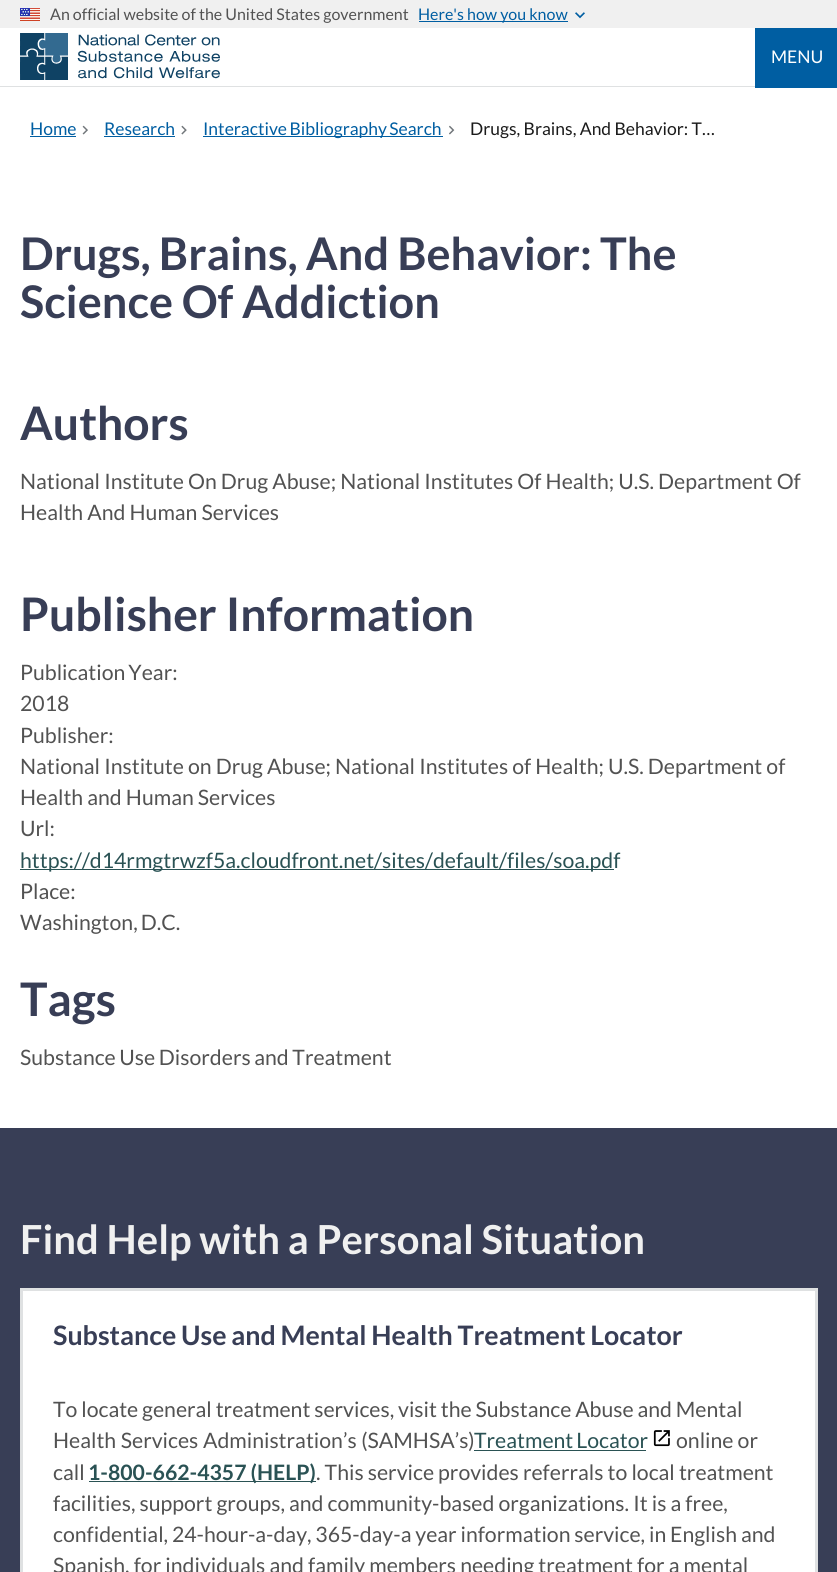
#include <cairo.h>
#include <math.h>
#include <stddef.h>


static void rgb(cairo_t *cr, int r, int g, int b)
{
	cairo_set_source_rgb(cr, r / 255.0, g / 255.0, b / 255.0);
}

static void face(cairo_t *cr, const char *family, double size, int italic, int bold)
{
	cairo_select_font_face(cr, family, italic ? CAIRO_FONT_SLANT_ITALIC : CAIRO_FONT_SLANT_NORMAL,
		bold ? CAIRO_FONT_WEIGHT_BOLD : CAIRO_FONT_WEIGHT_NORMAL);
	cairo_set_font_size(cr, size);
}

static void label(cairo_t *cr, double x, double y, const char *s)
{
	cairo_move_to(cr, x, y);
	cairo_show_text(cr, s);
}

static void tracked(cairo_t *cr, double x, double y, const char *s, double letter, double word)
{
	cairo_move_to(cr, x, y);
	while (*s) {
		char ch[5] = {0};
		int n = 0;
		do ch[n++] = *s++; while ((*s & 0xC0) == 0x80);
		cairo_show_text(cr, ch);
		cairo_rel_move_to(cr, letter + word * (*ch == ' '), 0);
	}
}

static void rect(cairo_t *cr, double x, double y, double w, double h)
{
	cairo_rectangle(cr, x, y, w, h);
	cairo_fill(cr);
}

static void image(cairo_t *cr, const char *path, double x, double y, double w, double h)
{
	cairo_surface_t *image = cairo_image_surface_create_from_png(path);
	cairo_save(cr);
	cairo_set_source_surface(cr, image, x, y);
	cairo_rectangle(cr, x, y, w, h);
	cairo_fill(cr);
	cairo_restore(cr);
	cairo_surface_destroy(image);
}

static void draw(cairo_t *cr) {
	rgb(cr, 255, 255, 255);
	cairo_paint(cr);
	rgb(cr, 240, 240, 240);
	rect(cr, 0, 0, 837, 28);
	image(cr, "image0.png", 20, 8, 20, 13);
	face(cr, "Lato", 16, 0, 0);
	rgb(cr, 82, 82, 82);
	label(cr, 50, 20, "An official website of the United States government");
	rgb(cr, 0, 94, 162);
	rect(cr, 419, 21, 149, 1);
	label(cr, 418, 20, "Here's how you know");
	image(cr, "image1.png", 575, 12, 10, 7);
	rgb(cr, 223, 225, 226);
	rect(cr, 0, 86, 755, 1);
	image(cr, "image2.png", 20, 33, 200, 47);
	rgb(cr, 0, 94, 162);
	rect(cr, 755, 28, 82, 60);
	face(cr, "Lato", 17.5, 0, 0);
	rgb(cr, 255, 255, 255);
	label(cr, 771, 63, "MENU");
	rgb(cr, 0, 94, 162);
	label(cr, 30, 135, "Home");
	rect(cr, 30, 136, 46, 1);
	image(cr, "image3.png", 82, 125, 6, 10);
	label(cr, 104, 135, "Research");
	rect(cr, 104, 136, 71, 1);
	image(cr, "image4.png", 181, 125, 6, 10);
	rect(cr, 203, 136, 240, 1);
	tracked(cr, 203, 135, "Interactive Bibliography Search", 0, -1);
	image(cr, "image5.png", 449, 125, 6, 10);
	rgb(cr, 27, 27, 27);
	label(cr, 470, 135, "Drugs, Brains, And Behavior: T…");
	face(cr, "Lato", 45, 0, 1);
	rgb(cr, 56, 62, 86);
	tracked(cr, 20, 270, "Drugs, Brains, And Behavior: The", 0, -0.5);
	label(cr, 20, 318, "Science Of Addiction");
	face(cr, "Lato", 46.25, 0, 1);
	label(cr, 20, 440, "Authors");
	face(cr, "Lato", 21.25, 0, 0);
	rgb(cr, 82, 82, 82);
	label(cr, 20, 489, "National Institute On Drug Abuse; National Institutes Of Health; U.S. Department Of");
	label(cr, 20, 520, "Health And Human Services");
	face(cr, "Lato", 46.25, 0, 1);
	rgb(cr, 56, 62, 86);
	label(cr, 20, 631, "Publisher Information");
	face(cr, "Lato", 21.25, 0, 0);
	rgb(cr, 82, 82, 82);
	tracked(cr, 20, 680, "Publication Year:", 0, -1);
	label(cr, 20, 711, "2018");
	label(cr, 20, 743, "Publisher:");
	label(cr, 20, 774, "National Institute on Drug Abuse; National Institutes of Health; U.S. Department of");
	label(cr, 20, 805, "Health and Human Services");
	label(cr, 20, 836, "Url:");
	rgb(cr, 42, 82, 84);
	rect(cr, 20, 869, 594, 1);
	label(cr, 20, 868, "https://d14rmgtrwzf5a.cloudfront.net/sites/default/files/soa.pdf");
	rgb(cr, 82, 82, 82);
	label(cr, 20, 899, "Place:");
	tracked(cr, 20, 930, "Washington, D.C.", 0, -1);
	face(cr, "Lato", 46.25, 0, 1);
	rgb(cr, 56, 62, 86);
	label(cr, 20, 1016, "Tags");
	face(cr, "Lato", 21.25, 0, 0);
	rgb(cr, 82, 82, 82);
	tracked(cr, 20, 1065, "Substance Use Disorders and Treatment", 0, -0.5);
	rgb(cr, 56, 62, 86);
	rect(cr, 0, 1128, 837, 444);
	face(cr, "Lato", 40, 0, 1);
	rgb(cr, 240, 240, 240);
	label(cr, 20, 1254, "Find Help with a Personal Situation");
	rgb(cr, 255, 255, 255);
	cairo_rectangle(cr, 21.5, 1289.5, 795, 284);
	cairo_fill_preserve(cr);
	rgb(cr, 223, 225, 226);
	cairo_set_line_width(cr, 3);
	cairo_stroke(cr);
	face(cr, "Lato", 26.8, 0, 1);
	rgb(cr, 56, 62, 86);
	tracked(cr, 53, 1345, "Substance Use and Mental Health Treatment Locator", 0, -0.5);
	face(cr, "Lato", 21.25, 0, 0);
	rgb(cr, 82, 82, 82);
	tracked(cr, 53, 1417, "To locate general treatment services, visit the Substance Abuse and Mental", 0, -0.25);
	tracked(cr, 53, 1448, "Health Services Administration’s (SAMHSA’s)", 0, 0.5);
	rgb(cr, 42, 82, 84);
	tracked(cr, 474, 1448, "Treatment Locator", 0, -1);
	rect(cr, 474, 1450, 172, 1);
	image(cr, "image6.png", 653, 1430, 17, 17);
	rgb(cr, 82, 82, 82);
	label(cr, 676, 1448, "online or");
	label(cr, 53, 1480, "call");
	rgb(cr, 42, 82, 84);
	rect(cr, 89, 1481, 227, 1);
	face(cr, "Lato", 21.25, 0, 1);
	label(cr, 88, 1480, "1-800-662-4357 (HELP)");
	face(cr, "Lato", 21.25, 0, 0);
	rgb(cr, 82, 82, 82);
	label(cr, 316, 1480, ". This service provides referrals to local treatment");
	label(cr, 53, 1511, "facilities, support groups, and community-based organizations. It is a free,");
	tracked(cr, 53, 1542, "confidential, 24-hour-a-day, 365-day-a year information service, in English and", 0, -0.25);
	label(cr, 53, 1573, "Spanish, for individuals and family members needing treatment for a mental");
}

int main(void) {
	cairo_surface_t *surface = cairo_image_surface_create(CAIRO_FORMAT_RGB24, 837, 1572);
	cairo_t *cr = cairo_create(surface);
	cairo_font_options_t *options = cairo_font_options_create();
	cairo_font_options_set_hint_metrics(options, CAIRO_HINT_METRICS_OFF);
	cairo_font_options_set_hint_style(options, CAIRO_HINT_STYLE_NONE);
	cairo_set_font_options(cr, options);
	cairo_set_miter_limit(cr, 4);
	draw(cr);
	cairo_surface_write_to_png(surface, "render.png");
	cairo_font_options_destroy(options);
	cairo_destroy(cr);
	cairo_surface_destroy(surface);
	return 0;
}
